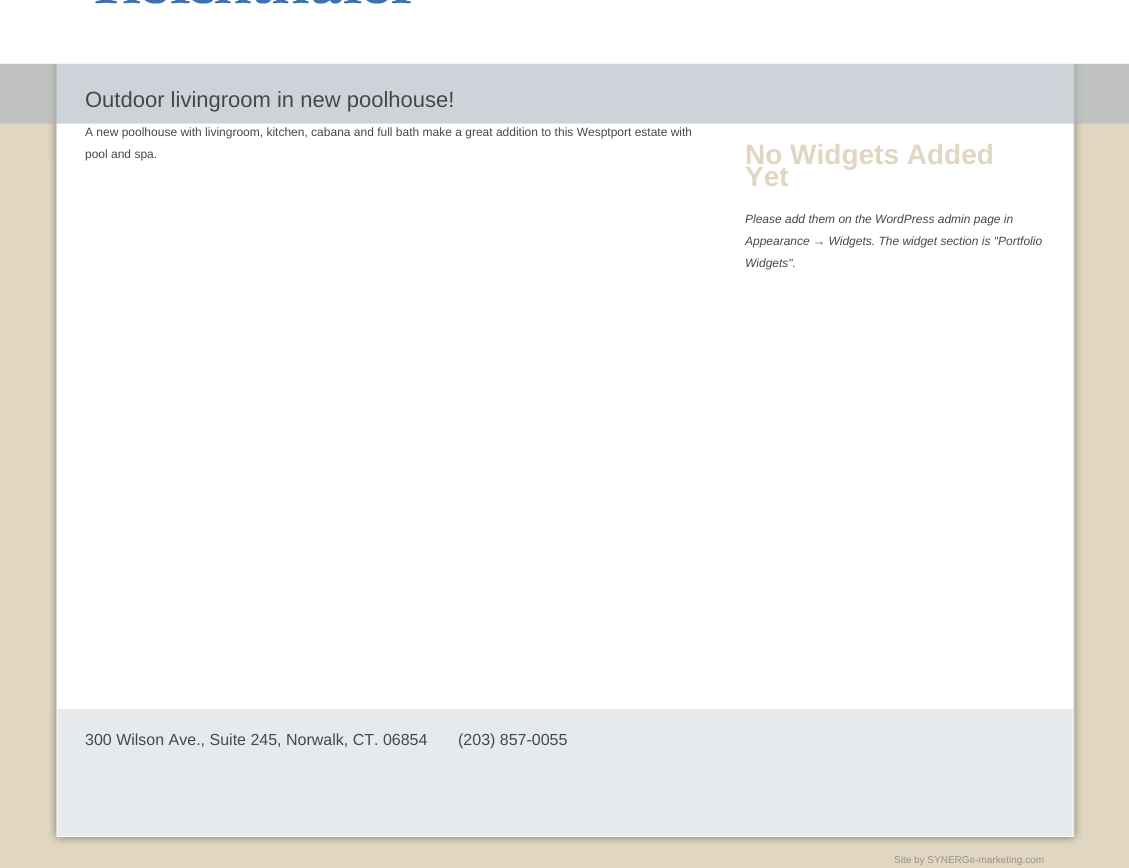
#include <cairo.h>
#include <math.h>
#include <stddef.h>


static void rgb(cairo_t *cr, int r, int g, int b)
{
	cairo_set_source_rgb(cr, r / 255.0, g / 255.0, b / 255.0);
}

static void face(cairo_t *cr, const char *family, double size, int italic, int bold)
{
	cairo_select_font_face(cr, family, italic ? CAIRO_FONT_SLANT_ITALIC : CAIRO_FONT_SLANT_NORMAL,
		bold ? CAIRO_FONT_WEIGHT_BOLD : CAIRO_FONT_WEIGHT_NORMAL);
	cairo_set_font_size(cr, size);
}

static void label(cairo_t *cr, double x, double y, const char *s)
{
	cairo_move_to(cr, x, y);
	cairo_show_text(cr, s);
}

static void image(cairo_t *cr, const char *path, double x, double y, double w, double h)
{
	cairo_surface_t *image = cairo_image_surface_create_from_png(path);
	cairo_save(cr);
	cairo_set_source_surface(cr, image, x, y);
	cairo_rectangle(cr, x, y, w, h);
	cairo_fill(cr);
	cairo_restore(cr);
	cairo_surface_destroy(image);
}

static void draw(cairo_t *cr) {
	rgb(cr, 224, 214, 193);
	cairo_paint(cr);
	image(cr, "image0.png", 50, 160, 1031, 549);
	image(cr, "image1.png", 0, 0, 1129, 160);
	image(cr, "image2.png", 95, 0, 316, 4);
	face(cr, "Liberation Sans", 22, 0, 0);
	rgb(cr, 67, 72, 74);
	label(cr, 85, 107, "Outdoor livingroom in new poolhouse!");
	face(cr, "Liberation Sans", 12, 0, 0);
	label(cr, 85, 136, "A new poolhouse with livingroom, kitchen, cabana and full bath make a great addition to this Wesptport estate with");
	label(cr, 85, 158, "pool and spa.");
	face(cr, "Liberation Sans", 28, 0, 1);
	rgb(cr, 224, 214, 193);
	label(cr, 745, 164, "No Widgets Added");
	label(cr, 745, 186, "Yet");
	face(cr, "Liberation Sans", 12, 1, 0);
	rgb(cr, 67, 72, 74);
	label(cr, 745, 223, "Please add them on the WordPress admin page in");
	label(cr, 745, 245, "Appearance → Widgets. The widget section is \"Portfolio");
	label(cr, 745, 267, "Widgets\".");
	image(cr, "image3.png", 49, 709, 1033, 159);
	face(cr, "Liberation Sans", 16, 0, 0);
	label(cr, 85, 745, "300 Wilson Ave., Suite 245, Norwalk, CT. 06854");
	label(cr, 458, 745, "(203) 857-0055");
	face(cr, "Liberation Sans", 10, 0, 0);
	rgb(cr, 151, 145, 131);
	label(cr, 894, 863, "Site by SYNERGe-marketing.com");
}

int main(void) {
	cairo_surface_t *surface = cairo_image_surface_create(CAIRO_FORMAT_RGB24, 1129, 868);
	cairo_t *cr = cairo_create(surface);
	cairo_font_options_t *options = cairo_font_options_create();
	cairo_font_options_set_hint_metrics(options, CAIRO_HINT_METRICS_OFF);
	cairo_font_options_set_hint_style(options, CAIRO_HINT_STYLE_NONE);
	cairo_set_font_options(cr, options);
	cairo_set_miter_limit(cr, 4);
	draw(cr);
	cairo_surface_write_to_png(surface, "render.png");
	cairo_font_options_destroy(options);
	cairo_destroy(cr);
	cairo_surface_destroy(surface);
	return 0;
}
